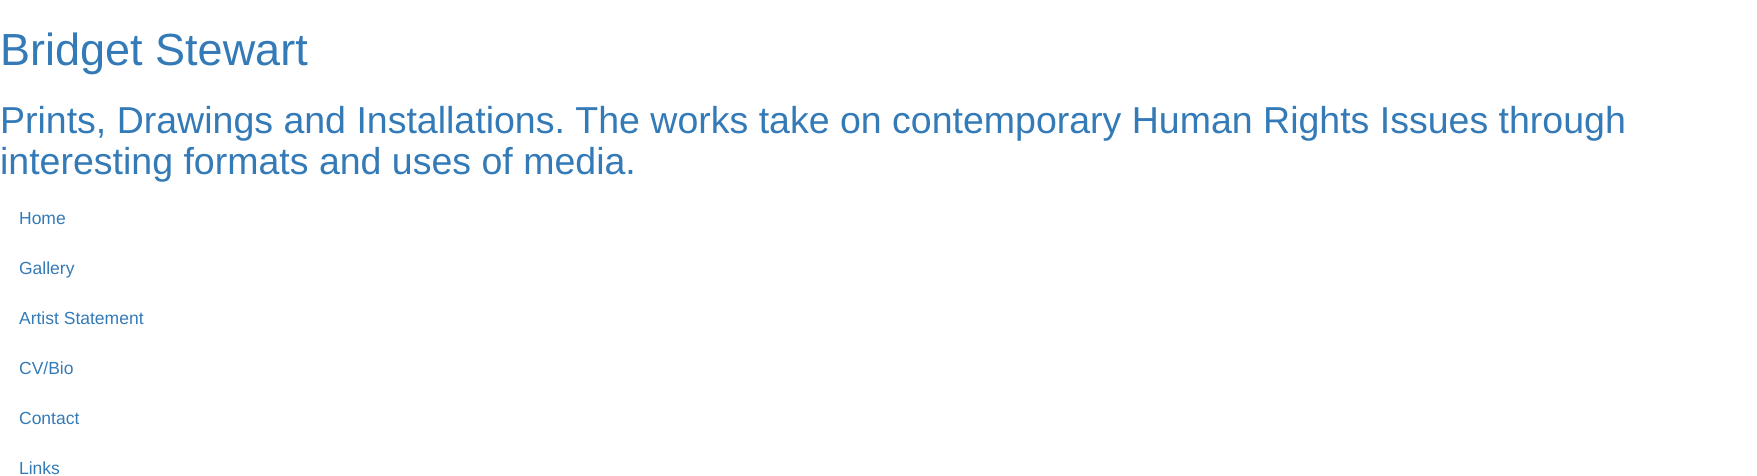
#include <cairo.h>
#include <math.h>
#include <stddef.h>


static void rgb(cairo_t *cr, int r, int g, int b)
{
	cairo_set_source_rgb(cr, r / 255.0, g / 255.0, b / 255.0);
}

static void face(cairo_t *cr, const char *family, double size, int italic, int bold)
{
	cairo_select_font_face(cr, family, italic ? CAIRO_FONT_SLANT_ITALIC : CAIRO_FONT_SLANT_NORMAL,
		bold ? CAIRO_FONT_WEIGHT_BOLD : CAIRO_FONT_WEIGHT_NORMAL);
	cairo_set_font_size(cr, size);
}

static void label(cairo_t *cr, double x, double y, const char *s)
{
	cairo_move_to(cr, x, y);
	cairo_show_text(cr, s);
}

static void draw(cairo_t *cr) {
	rgb(cr, 255, 255, 255);
	cairo_paint(cr);
	face(cr, "Liberation Sans", 45, 0, 0);
	rgb(cr, 51, 122, 183);
	label(cr, 0, 65, "Bridget Stewart");
	face(cr, "Liberation Sans", 37.5, 0, 0);
	label(cr, 0, 133, "Prints, Drawings and Installations. The works take on contemporary Human Rights Issues through");
	label(cr, 0, 174, "interesting formats and uses of media.");
	face(cr, "Liberation Sans", 17.5, 0, 0);
	label(cr, 19, 224, "Home");
	label(cr, 19, 274, "Gallery");
	label(cr, 19, 324, "Artist Statement");
	label(cr, 19, 374, "CV/Bio");
	label(cr, 19, 424, "Contact");
	label(cr, 19, 474, "Links");
}

int main(void) {
	cairo_surface_t *surface = cairo_image_surface_create(CAIRO_FORMAT_RGB24, 1757, 476);
	cairo_t *cr = cairo_create(surface);
	cairo_font_options_t *options = cairo_font_options_create();
	cairo_font_options_set_hint_metrics(options, CAIRO_HINT_METRICS_OFF);
	cairo_font_options_set_hint_style(options, CAIRO_HINT_STYLE_NONE);
	cairo_set_font_options(cr, options);
	cairo_set_miter_limit(cr, 4);
	draw(cr);
	cairo_surface_write_to_png(surface, "render.png");
	cairo_font_options_destroy(options);
	cairo_destroy(cr);
	cairo_surface_destroy(surface);
	return 0;
}
